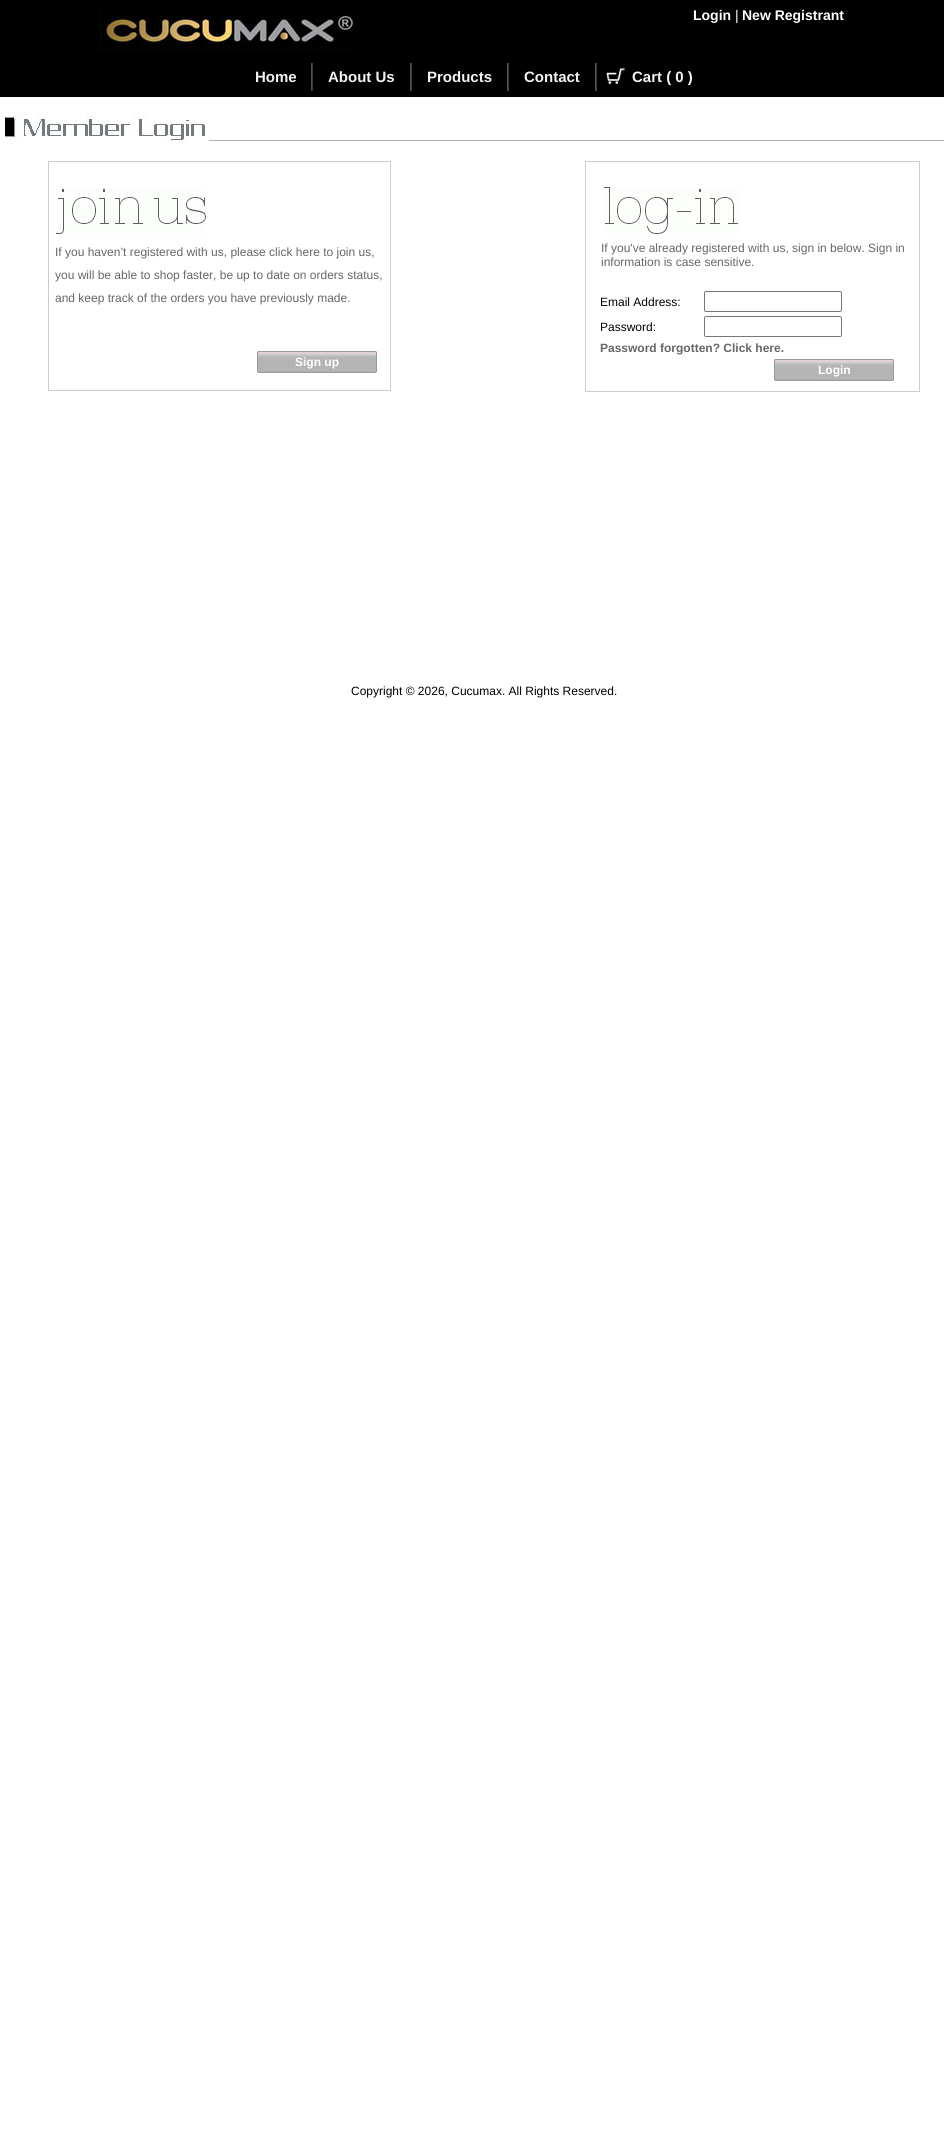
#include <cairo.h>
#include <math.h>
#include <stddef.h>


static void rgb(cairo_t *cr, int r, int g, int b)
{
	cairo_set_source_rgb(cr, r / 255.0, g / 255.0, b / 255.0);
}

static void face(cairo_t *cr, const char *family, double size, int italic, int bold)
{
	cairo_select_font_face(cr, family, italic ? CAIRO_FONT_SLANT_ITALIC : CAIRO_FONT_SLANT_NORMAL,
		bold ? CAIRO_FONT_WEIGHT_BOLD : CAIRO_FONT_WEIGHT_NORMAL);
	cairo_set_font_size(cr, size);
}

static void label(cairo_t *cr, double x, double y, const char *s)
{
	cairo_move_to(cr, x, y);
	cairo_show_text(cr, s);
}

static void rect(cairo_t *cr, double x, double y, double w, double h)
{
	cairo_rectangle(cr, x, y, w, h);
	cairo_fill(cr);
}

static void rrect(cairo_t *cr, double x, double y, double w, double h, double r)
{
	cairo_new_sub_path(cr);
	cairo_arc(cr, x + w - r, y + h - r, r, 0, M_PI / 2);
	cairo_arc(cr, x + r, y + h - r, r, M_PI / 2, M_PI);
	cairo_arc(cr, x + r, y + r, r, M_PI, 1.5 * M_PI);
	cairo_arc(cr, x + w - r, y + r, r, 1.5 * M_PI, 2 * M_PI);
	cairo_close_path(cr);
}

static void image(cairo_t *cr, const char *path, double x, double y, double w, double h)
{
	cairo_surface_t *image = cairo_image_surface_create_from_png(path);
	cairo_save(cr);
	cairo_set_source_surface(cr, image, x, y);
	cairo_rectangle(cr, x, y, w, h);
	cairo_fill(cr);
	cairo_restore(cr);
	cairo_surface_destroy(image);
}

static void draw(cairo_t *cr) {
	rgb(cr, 255, 255, 255);
	cairo_paint(cr);
	rgb(cr, 0, 0, 0);
	rect(cr, 0, 0, 944, 97);
	image(cr, "image0.png", 100, 8, 256, 42);
	face(cr, "Liberation Sans", 14, 0, 1);
	rgb(cr, 255, 255, 255);
	label(cr, 693, 20, "Login");
	face(cr, "Liberation Sans", 14, 0, 0);
	label(cr, 735, 20, "|");
	face(cr, "Liberation Sans", 14, 0, 1);
	label(cr, 742, 20, "New Registrant");
	rgb(cr, 79, 80, 88);
	rect(cr, 311, 63, 1, 28);
	face(cr, "Liberation Sans", 15, 0, 1);
	rgb(cr, 243, 243, 243);
	label(cr, 255, 82, "Home");
	rgb(cr, 79, 80, 88);
	rect(cr, 410, 63, 1, 28);
	rgb(cr, 57, 57, 66);
	rect(cr, 312, 63, 1, 28);
	rgb(cr, 243, 243, 243);
	label(cr, 328, 82, "About Us");
	rgb(cr, 79, 80, 88);
	rect(cr, 507, 63, 1, 28);
	rgb(cr, 57, 57, 66);
	rect(cr, 411, 63, 1, 28);
	rgb(cr, 243, 243, 243);
	label(cr, 427, 82, "Products");
	rgb(cr, 79, 80, 88);
	rect(cr, 595, 63, 1, 28);
	rgb(cr, 57, 57, 66);
	rect(cr, 508, 63, 1, 28);
	rgb(cr, 243, 243, 243);
	label(cr, 524, 82, "Contact");
	image(cr, "image1.png", 606, 67, 19, 18);
	rgb(cr, 57, 57, 66);
	rect(cr, 596, 63, 1, 28);
	rgb(cr, 243, 243, 243);
	label(cr, 632, 82, "Cart ( 0 )");
	image(cr, "image2.png", 5, 112, 204, 30);
	rgb(cr, 180, 180, 180);
	rect(cr, 209, 140, 735, 1);
	cairo_rectangle(cr, 48.5, 161.5, 342, 229);
	rgb(cr, 204, 204, 204);
	cairo_set_line_width(cr, 1);
	cairo_stroke(cr);
	image(cr, "image3.png", 56, 189, 150, 45);
	face(cr, "Liberation Sans", 12, 0, 0);
	rgb(cr, 102, 102, 102);
	label(cr, 55, 256, "If you haven’t registered with us, please click here to join us,");
	label(cr, 55, 279, "you will be able to shop faster, be up to date on orders status,");
	label(cr, 55, 302, "and keep track of the orders you have previously made.");
	image(cr, "image4.png", 257, 351, 120, 22);
	rrect(cr, 257.5, 351.5, 119, 21, 1.5);
	rgb(cr, 153, 153, 153);
	cairo_stroke(cr);
	face(cr, "Liberation Sans", 12, 0, 1);
	rgb(cr, 255, 255, 255);
	label(cr, 295, 366, "Sign up");
	cairo_rectangle(cr, 585.5, 161.5, 334, 230);
	rgb(cr, 204, 204, 204);
	cairo_stroke(cr);
	image(cr, "image5.png", 604, 187, 134, 47);
	face(cr, "Liberation Sans", 12, 0, 0);
	rgb(cr, 102, 102, 102);
	label(cr, 601, 252, "If you've already registered with us, sign in below. Sign in");
	label(cr, 601, 266, "information is case sensitive.");
	rgb(cr, 0, 0, 0);
	label(cr, 600, 306, "Email Address:");
	rrect(cr, 704.5, 291.5, 137, 20, 1.5);
	rgb(cr, 118, 118, 118);
	cairo_stroke(cr);
	rgb(cr, 0, 0, 0);
	label(cr, 600, 331, "Password:");
	rrect(cr, 704.5, 316.5, 137, 20, 1.5);
	rgb(cr, 118, 118, 118);
	cairo_stroke(cr);
	face(cr, "Liberation Sans", 12, 0, 1);
	rgb(cr, 102, 102, 102);
	label(cr, 600, 352, "Password forgotten? Click here.");
	image(cr, "image4.png", 774, 359, 120, 22);
	rrect(cr, 774.5, 359.5, 119, 21, 1.5);
	rgb(cr, 153, 153, 153);
	cairo_stroke(cr);
	rgb(cr, 255, 255, 255);
	label(cr, 818, 374, "Login");
	face(cr, "Liberation Sans", 12, 0, 0);
	rgb(cr, 0, 0, 0);
	label(cr, 351, 695, "Copyright © 2026, Cucumax. All Rights Reserved.");
}

int main(void) {
	cairo_surface_t *surface = cairo_image_surface_create(CAIRO_FORMAT_RGB24, 944, 2133);
	cairo_t *cr = cairo_create(surface);
	cairo_font_options_t *options = cairo_font_options_create();
	cairo_font_options_set_hint_metrics(options, CAIRO_HINT_METRICS_OFF);
	cairo_font_options_set_hint_style(options, CAIRO_HINT_STYLE_NONE);
	cairo_set_font_options(cr, options);
	cairo_set_miter_limit(cr, 4);
	draw(cr);
	cairo_surface_write_to_png(surface, "render.png");
	cairo_font_options_destroy(options);
	cairo_destroy(cr);
	cairo_surface_destroy(surface);
	return 0;
}
